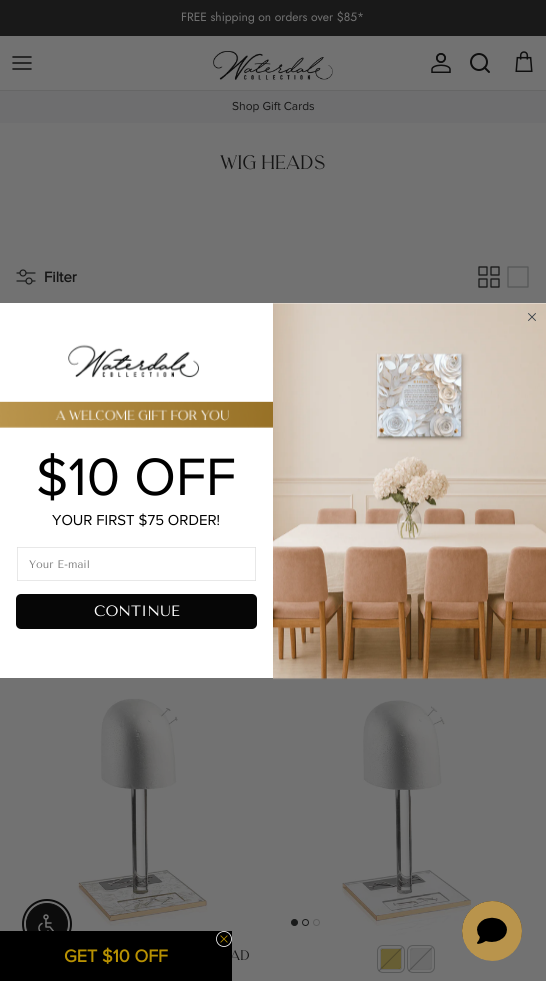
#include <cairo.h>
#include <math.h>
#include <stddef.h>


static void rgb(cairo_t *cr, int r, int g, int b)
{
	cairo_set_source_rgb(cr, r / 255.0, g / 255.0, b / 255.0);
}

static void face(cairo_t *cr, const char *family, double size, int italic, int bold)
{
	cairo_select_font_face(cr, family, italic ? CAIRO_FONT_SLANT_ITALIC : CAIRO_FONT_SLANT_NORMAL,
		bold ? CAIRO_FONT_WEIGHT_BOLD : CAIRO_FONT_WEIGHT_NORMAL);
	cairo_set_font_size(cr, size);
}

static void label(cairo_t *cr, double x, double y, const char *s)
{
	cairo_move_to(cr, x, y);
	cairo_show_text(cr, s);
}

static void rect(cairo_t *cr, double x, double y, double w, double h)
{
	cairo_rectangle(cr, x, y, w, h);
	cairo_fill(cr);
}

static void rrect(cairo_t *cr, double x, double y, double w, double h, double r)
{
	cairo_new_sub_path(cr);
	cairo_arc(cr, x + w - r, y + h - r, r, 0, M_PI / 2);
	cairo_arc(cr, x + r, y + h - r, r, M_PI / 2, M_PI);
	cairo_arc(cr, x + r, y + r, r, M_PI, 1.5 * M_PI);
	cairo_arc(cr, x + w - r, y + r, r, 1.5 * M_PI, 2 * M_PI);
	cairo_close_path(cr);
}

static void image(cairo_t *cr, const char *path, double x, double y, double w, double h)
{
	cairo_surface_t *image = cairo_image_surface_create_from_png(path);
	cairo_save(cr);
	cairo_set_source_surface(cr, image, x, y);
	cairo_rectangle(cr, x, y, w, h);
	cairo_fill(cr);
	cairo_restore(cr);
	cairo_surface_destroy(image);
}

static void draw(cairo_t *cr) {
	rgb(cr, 114, 114, 114);
	cairo_paint(cr);
	rgb(cr, 25, 25, 25);
	rect(cr, 0, 0, 546, 36);
	face(cr, "Jost", 12, 0, 0);
	rgb(cr, 114, 114, 114);
	label(cr, 181, 21, "FREE shipping on orders over $85*");
	rgb(cr, 102, 102, 102);
	rect(cr, 0, 90, 546, 1);
	cairo_new_path(cr);
	cairo_move_to(cr, 13, 63);
	cairo_line_to(cr, 31, 63);
	cairo_move_to(cr, 13, 57);
	cairo_line_to(cr, 31, 57);
	cairo_move_to(cr, 13, 69);
	cairo_line_to(cr, 31, 69);
	rgb(cr, 14, 14, 14);
	cairo_set_line_width(cr, 1.5);
	cairo_set_line_cap(cr, CAIRO_LINE_CAP_ROUND);
	cairo_set_line_join(cr, CAIRO_LINE_JOIN_ROUND);
	cairo_stroke(cr);
	image(cr, "image0.png", 213, 51, 120, 29);
	image(cr, "image1.png", 431, 53, 20, 20);
	cairo_arc(cr, 479, 62, 8, 0, 2 * M_PI);
	cairo_set_line_width(cr, 2);
	cairo_set_line_cap(cr, CAIRO_LINE_CAP_BUTT);
	cairo_set_line_join(cr, CAIRO_LINE_JOIN_MITER);
	cairo_stroke(cr);
	cairo_new_path(cr);
	cairo_move_to(cr, 489, 72);
	cairo_line_to(cr, 484.5, 67.5);
	cairo_set_line_cap(cr, CAIRO_LINE_CAP_ROUND);
	cairo_set_line_join(cr, CAIRO_LINE_JOIN_ROUND);
	cairo_stroke(cr);
	image(cr, "image2.png", 515, 51, 18, 21);
	rgb(cr, 110, 110, 111);
	rect(cr, 0, 91, 546, 32);
	face(cr, "Proxima Nova", 12, 0, 0);
	rgb(cr, 21, 21, 21);
	label(cr, 232, 110, "Shop Gift Cards");
	face(cr, "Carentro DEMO", 19.5, 0, 0);
	label(cr, 220, 169, "Wig Heads");
	image(cr, "image3.png", 16, 269, 20, 16);
	face(cr, "Proxima Nova", 15, 0, 1);
	label(cr, 44, 282, "Filter");
	image(cr, "image4.png", 478, 266, 22, 22);
	cairo_new_path(cr);
	cairo_move_to(cr, 508, 267);
	cairo_line_to(cr, 528, 267);
	cairo_line_to(cr, 528, 287);
	cairo_line_to(cr, 508, 287);
	cairo_line_to(cr, 508, 267);
	rgb(cr, 87, 88, 88);
	cairo_set_line_width(cr, 1.3);
	cairo_stroke(cr);
	cairo_arc(cr, 29.5, 922.5, 3, 0, 2 * M_PI);
	rgb(cr, 25, 26, 26);
	cairo_set_line_width(cr, 1);
	cairo_set_line_cap(cr, CAIRO_LINE_CAP_BUTT);
	cairo_set_line_join(cr, CAIRO_LINE_JOIN_MITER);
	cairo_stroke(cr);
	image(cr, "image5.png", 77, 698, 131, 228);
	face(cr, "Carentro DEMO", 14, 0, 0);
	rgb(cr, 21, 21, 21);
	label(cr, 230, 960, "ad");
	rgb(cr, 25, 26, 26);
	cairo_new_path(cr);
	cairo_arc(cr, 294.5, 922.5, 3, 0, 2 * M_PI);
	cairo_fill_preserve(cr);
	cairo_stroke(cr);
	cairo_arc(cr, 305.5, 922.5, 3, 0, 2 * M_PI);
	cairo_stroke(cr);
	cairo_arc(cr, 316.5, 922.5, 3, 0, 2 * M_PI);
	rgb(cr, 92, 92, 92);
	cairo_stroke(cr);
	image(cr, "image6.png", 342, 700, 180, 237);
	image(cr, "image7.png", 462, 901, 60, 37);
	rrect(cr, 378.5, 946.5, 25, 25, 4.5);
	rgb(cr, 87, 88, 88);
	cairo_set_line_width(cr, 3);
	cairo_stroke(cr);
	rrect(cr, 379, 947, 24, 24, 4);
	rgb(cr, 114, 114, 114);
	cairo_set_line_width(cr, 2);
	cairo_stroke(cr);
	rgb(cr, 96, 82, 12);
	rrect(cr, 381, 949, 20, 20, 2);
	cairo_fill(cr);
	rrect(cr, 380.5, 948.5, 21, 21, 2.5);
	cairo_set_source_rgba(cr, 0.047, 0.047, 0.047, 0.1);
	cairo_set_line_width(cr, 1);
	cairo_stroke(cr);
	cairo_set_source_rgba(cr, 0.447, 0.447, 0.447, 0.4);
	rrect(cr, 381, 949, 20, 20, 3);
	cairo_fill(cr);
	cairo_set_source_rgba(cr, 0.098, 0.102, 0.102, 0.3);
	cairo_new_path(cr);
	cairo_move_to(cr, 378.5, 970.5);
	cairo_line_to(cr, 402, 947);
	cairo_line_to(cr, 402.5, 948);
	cairo_line_to(cr, 379, 971.5);
	cairo_close_path(cr);
	cairo_fill(cr);
	rrect(cr, 408.5, 946.5, 25, 25, 4.5);
	rgb(cr, 87, 88, 88);
	cairo_set_line_width(cr, 3);
	cairo_stroke(cr);
	rrect(cr, 409, 947, 24, 24, 4);
	rgb(cr, 114, 114, 114);
	cairo_set_line_width(cr, 2);
	cairo_stroke(cr);
	rgb(cr, 100, 100, 100);
	rrect(cr, 411, 949, 20, 20, 2);
	cairo_fill(cr);
	rrect(cr, 410.5, 948.5, 21, 21, 2.5);
	cairo_set_source_rgba(cr, 0.047, 0.047, 0.047, 0.1);
	cairo_set_line_width(cr, 1);
	cairo_stroke(cr);
	rgb(cr, 106, 106, 106);
	rrect(cr, 411, 949, 20, 20, 3);
	cairo_fill(cr);
	cairo_set_source_rgba(cr, 0.098, 0.102, 0.102, 0.3);
	cairo_new_path(cr);
	cairo_move_to(cr, 408.5, 970.5);
	cairo_line_to(cr, 432, 947);
	cairo_line_to(cr, 432.5, 948);
	cairo_line_to(cr, 409, 971.5);
	cairo_close_path(cr);
	cairo_fill(cr);
	rgb(cr, 255, 255, 255);
	rect(cr, 0, 303, 546, 375);
	image(cr, "image9.png", 273, 303, 273, 377);
	cairo_new_path(cr);
	cairo_move_to(cr, 528.5, 313.5);
	cairo_line_to(cr, 535.5, 320.5);
	cairo_move_to(cr, 528.5, 320.5);
	cairo_line_to(cr, 535.5, 313.5);
	cairo_close_path(cr);
	rgb(cr, 55, 63, 71);
	cairo_set_line_width(cr, 0.9);
	cairo_set_line_cap(cr, CAIRO_LINE_CAP_ROUND);
	cairo_set_line_join(cr, CAIRO_LINE_JOIN_ROUND);
	cairo_stroke(cr);
	image(cr, "image8.png", 0, 344, 273, 84);
	face(cr, "Proxima Nova", 54.5, 0, 0);
	rgb(cr, 0, 0, 0);
	label(cr, 36, 495, "$10 OFF");
	face(cr, "Proxima Nova", 15, 0, 0);
	label(cr, 52, 525, "YOUR FIRST $75 ORDER!");
	cairo_rectangle(cr, 17.35, 547.35, 238.3, 33.3);
	rgb(cr, 222, 222, 222);
	cairo_set_line_width(cr, 0.7);
	cairo_set_line_cap(cr, CAIRO_LINE_CAP_BUTT);
	cairo_set_line_join(cr, CAIRO_LINE_JOIN_MITER);
	cairo_stroke(cr);
	face(cr, "Tenor Sans", 11, 0, 0);
	rgb(cr, 127, 127, 127);
	label(cr, 29, 568, "Your E-mail");
	rgb(cr, 6, 6, 6);
	rrect(cr, 16, 594, 241, 35, 5);
	cairo_fill(cr);
	face(cr, "Tenor Sans", 15, 0, 0);
	rgb(cr, 255, 255, 255);
	label(cr, 94, 616, "CONTINUE");
	cairo_new_path(cr);
	cairo_arc(cr, 47, 924, 24, 0, 2 * M_PI);
	rgb(cr, 12, 12, 12);
	cairo_set_line_width(cr, 2);
	cairo_stroke(cr);
	cairo_arc(cr, 47, 924, 20.5, 0, 2 * M_PI);
	cairo_fill_preserve(cr);
	cairo_set_line_width(cr, 1);
	cairo_stroke(cr);
	image(cr, "image10.png", 38, 914, 16, 17);
	rgb(cr, 0, 0, 0);
	rect(cr, 0, 931, 232, 50);
	image(cr, "image11.png", 216, 931, 16, 16);
	face(cr, "Proxima Nova", 18, 0, 1);
	rgb(cr, 184, 145, 2);
	label(cr, 64, 962, "GET $10 OFF");
	image(cr, "image12.png", 462, 901, 60, 60);
}

int main(void) {
	cairo_surface_t *surface = cairo_image_surface_create(CAIRO_FORMAT_RGB24, 546, 981);
	cairo_t *cr = cairo_create(surface);
	cairo_font_options_t *options = cairo_font_options_create();
	cairo_font_options_set_hint_metrics(options, CAIRO_HINT_METRICS_OFF);
	cairo_font_options_set_hint_style(options, CAIRO_HINT_STYLE_NONE);
	cairo_set_font_options(cr, options);
	cairo_set_miter_limit(cr, 4);
	draw(cr);
	cairo_surface_write_to_png(surface, "render.png");
	cairo_font_options_destroy(options);
	cairo_destroy(cr);
	cairo_surface_destroy(surface);
	return 0;
}
